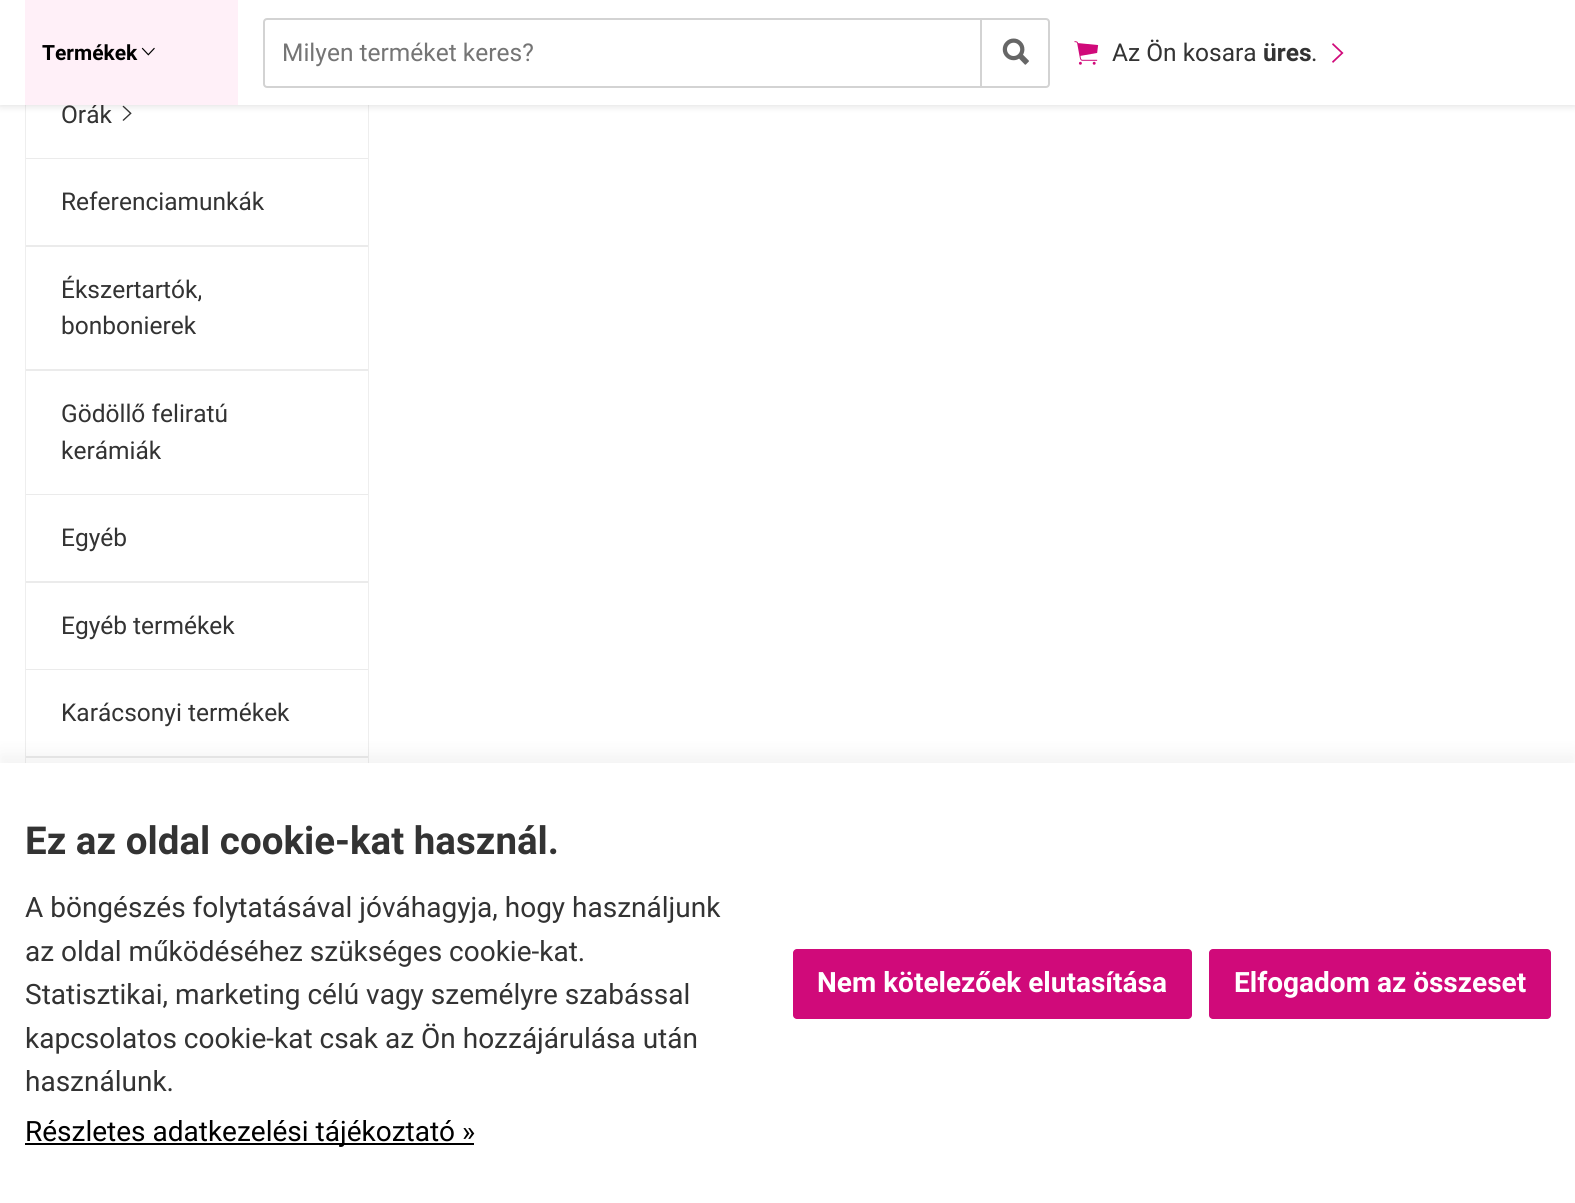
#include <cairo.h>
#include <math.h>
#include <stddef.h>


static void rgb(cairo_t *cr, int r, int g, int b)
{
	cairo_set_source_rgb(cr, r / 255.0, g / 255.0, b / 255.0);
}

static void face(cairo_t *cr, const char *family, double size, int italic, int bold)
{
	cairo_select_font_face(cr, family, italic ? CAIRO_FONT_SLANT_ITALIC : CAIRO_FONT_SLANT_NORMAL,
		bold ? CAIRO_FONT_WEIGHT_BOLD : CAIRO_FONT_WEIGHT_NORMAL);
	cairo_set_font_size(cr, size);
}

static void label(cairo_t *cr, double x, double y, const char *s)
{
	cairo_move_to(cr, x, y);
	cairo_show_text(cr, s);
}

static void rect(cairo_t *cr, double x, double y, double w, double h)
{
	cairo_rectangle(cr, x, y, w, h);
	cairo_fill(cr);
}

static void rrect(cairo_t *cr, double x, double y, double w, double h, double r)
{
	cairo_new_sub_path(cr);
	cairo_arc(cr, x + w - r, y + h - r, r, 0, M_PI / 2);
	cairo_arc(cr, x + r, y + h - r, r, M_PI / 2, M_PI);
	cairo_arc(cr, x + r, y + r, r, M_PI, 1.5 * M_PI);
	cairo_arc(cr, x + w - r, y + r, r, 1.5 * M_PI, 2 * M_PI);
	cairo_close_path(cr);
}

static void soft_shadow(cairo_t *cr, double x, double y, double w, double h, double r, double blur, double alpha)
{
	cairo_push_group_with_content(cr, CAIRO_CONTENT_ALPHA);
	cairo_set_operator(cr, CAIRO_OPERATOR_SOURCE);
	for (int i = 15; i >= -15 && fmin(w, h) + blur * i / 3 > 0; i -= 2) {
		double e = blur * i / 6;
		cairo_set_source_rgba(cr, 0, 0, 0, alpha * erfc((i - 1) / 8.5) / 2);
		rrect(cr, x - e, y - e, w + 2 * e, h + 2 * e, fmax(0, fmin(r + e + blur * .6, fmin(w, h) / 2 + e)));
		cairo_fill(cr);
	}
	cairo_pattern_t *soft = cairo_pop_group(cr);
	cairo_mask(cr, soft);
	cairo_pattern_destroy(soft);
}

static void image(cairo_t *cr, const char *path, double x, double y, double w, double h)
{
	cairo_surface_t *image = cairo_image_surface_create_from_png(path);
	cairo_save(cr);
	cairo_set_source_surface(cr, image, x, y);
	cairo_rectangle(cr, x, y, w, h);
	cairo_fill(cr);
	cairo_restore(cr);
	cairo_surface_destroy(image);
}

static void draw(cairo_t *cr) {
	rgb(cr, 255, 255, 255);
	cairo_paint(cr);
	cairo_rectangle(cr, 26, -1, 342, 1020);
	rgb(cr, 238, 238, 238);
	cairo_stroke(cr);
	rgb(cr, 255, 255, 255);
	rect(cr, 26, 105, 342, 658);
	image(cr, "image3.png", 122, 105, 10, 16);
	rgb(cr, 0, 0, 0);
	soft_shadow(cr, 0, 0, 1575, 105, 0, 4.5, 0.15);
	face(cr, "Roboto", 24.5, 0, 0);
	rgb(cr, 51, 51, 51);
	label(cr, 61, 123, "Órák");
	rgb(cr, 255, 255, 255);
	rect(cr, 0, 0, 1575, 105);
	rgb(cr, 255, 240, 248);
	rect(cr, 25, 0, 213, 105);
	face(cr, "Roboto", 21, 0, 1);
	rgb(cr, 0, 0, 0);
	label(cr, 42, 60, "Termékek");
	image(cr, "image0.png", 141, 47, 14, 9);
	rrect(cr, 264, 19, 785, 68, 3);
	rgb(cr, 211, 211, 211);
	cairo_stroke(cr);
	face(cr, "Roboto", 24.5, 0, 0);
	rgb(cr, 117, 117, 117);
	label(cr, 282, 61, "Milyen terméket keres?");
	rgb(cr, 211, 211, 211);
	rect(cr, 980, 18, 2, 70);
	image(cr, "image1.png", 1002, 38, 27, 27);
	image(cr, "image2.png", 1074, 41, 25, 24);
	rgb(cr, 51, 51, 51);
	label(cr, 1112, 61, "Az Ön kosara");
	face(cr, "Roboto", 24.5, 0, 1);
	label(cr, 1263, 61, "üres");
	face(cr, "Roboto", 24.5, 0, 0);
	label(cr, 1311, 61, ".");
	rgb(cr, 208, 10, 122);
	cairo_new_path(cr);
	cairo_move_to(cr, 1332, 44.5);
	cairo_line_to(cr, 1333, 43);
	cairo_line_to(cr, 1343.5, 53);
	cairo_line_to(cr, 1333, 63);
	cairo_line_to(cr, 1332, 61.5);
	cairo_line_to(cr, 1341, 53);
	cairo_close_path(cr);
	cairo_fill(cr);
	rgb(cr, 235, 235, 235);
	rect(cr, 26, 158, 342, 1);
	rect(cr, 26, 245, 342, 2);
	rgb(cr, 51, 51, 51);
	label(cr, 61, 210, "Referenciamunkák");
	rgb(cr, 235, 235, 235);
	rect(cr, 26, 369, 342, 2);
	rgb(cr, 51, 51, 51);
	label(cr, 61, 298, "Ékszertartók,");
	label(cr, 61, 334, "bonbonierek");
	rgb(cr, 235, 235, 235);
	rect(cr, 26, 494, 342, 1);
	rgb(cr, 51, 51, 51);
	label(cr, 61, 422, "Gödöllő feliratú");
	label(cr, 61, 459, "kerámiák");
	rgb(cr, 235, 235, 235);
	rect(cr, 26, 581, 342, 2);
	rgb(cr, 51, 51, 51);
	label(cr, 61, 546, "Egyéb");
	rgb(cr, 235, 235, 235);
	rect(cr, 26, 669, 342, 1);
	rgb(cr, 51, 51, 51);
	label(cr, 61, 634, "Egyéb termékek");
	rgb(cr, 235, 235, 235);
	rect(cr, 26, 756, 342, 2);
	rgb(cr, 51, 51, 51);
	label(cr, 61, 721, "Karácsonyi termékek");
	rgb(cr, 0, 0, 0);
	soft_shadow(cr, 0, 754, 1575, 441, 0, 9, 0.05);
	rgb(cr, 255, 255, 255);
	rect(cr, 0, 763, 1575, 440);
	face(cr, "Roboto", 38.5, 0, 1);
	rgb(cr, 51, 51, 51);
	label(cr, 25, 854, "Ez az oldal cookie-kat használ.");
	face(cr, "Roboto", 28, 0, 0);
	label(cr, 25, 917, "A böngészés folytatásával jóváhagyja, hogy használjunk");
	label(cr, 25, 961, "az oldal működéséhez szükséges cookie-kat.");
	label(cr, 25, 1004, "Statisztikai, marketing célú vagy személyre szabással");
	label(cr, 25, 1048, "kapcsolatos cookie-kat csak az Ön hozzájárulása után");
	label(cr, 25, 1091, "használunk.");
	rgb(cr, 0, 0, 0);
	rect(cr, 25, 1143, 449, 2);
	label(cr, 25, 1141, "Részletes adatkezelési tájékoztató »");
	rgb(cr, 208, 10, 122);
	rrect(cr, 793, 949, 399, 70, 4);
	cairo_fill(cr);
	face(cr, "Roboto", 28, 0, 1);
	rgb(cr, 255, 255, 255);
	label(cr, 817, 992, "Nem kötelezőek elutasítása");
	rgb(cr, 208, 10, 122);
	rrect(cr, 1209, 949, 342, 70, 4);
	cairo_fill(cr);
	rgb(cr, 255, 255, 255);
	label(cr, 1234, 992, "Elfogadom az összeset");
}

int main(void) {
	cairo_surface_t *surface = cairo_image_surface_create(CAIRO_FORMAT_RGB24, 1575, 1203);
	cairo_t *cr = cairo_create(surface);
	cairo_font_options_t *options = cairo_font_options_create();
	cairo_font_options_set_hint_metrics(options, CAIRO_HINT_METRICS_OFF);
	cairo_font_options_set_hint_style(options, CAIRO_HINT_STYLE_NONE);
	cairo_set_font_options(cr, options);
	cairo_set_miter_limit(cr, 4);
	draw(cr);
	cairo_surface_write_to_png(surface, "render.png");
	cairo_font_options_destroy(options);
	cairo_destroy(cr);
	cairo_surface_destroy(surface);
	return 0;
}
